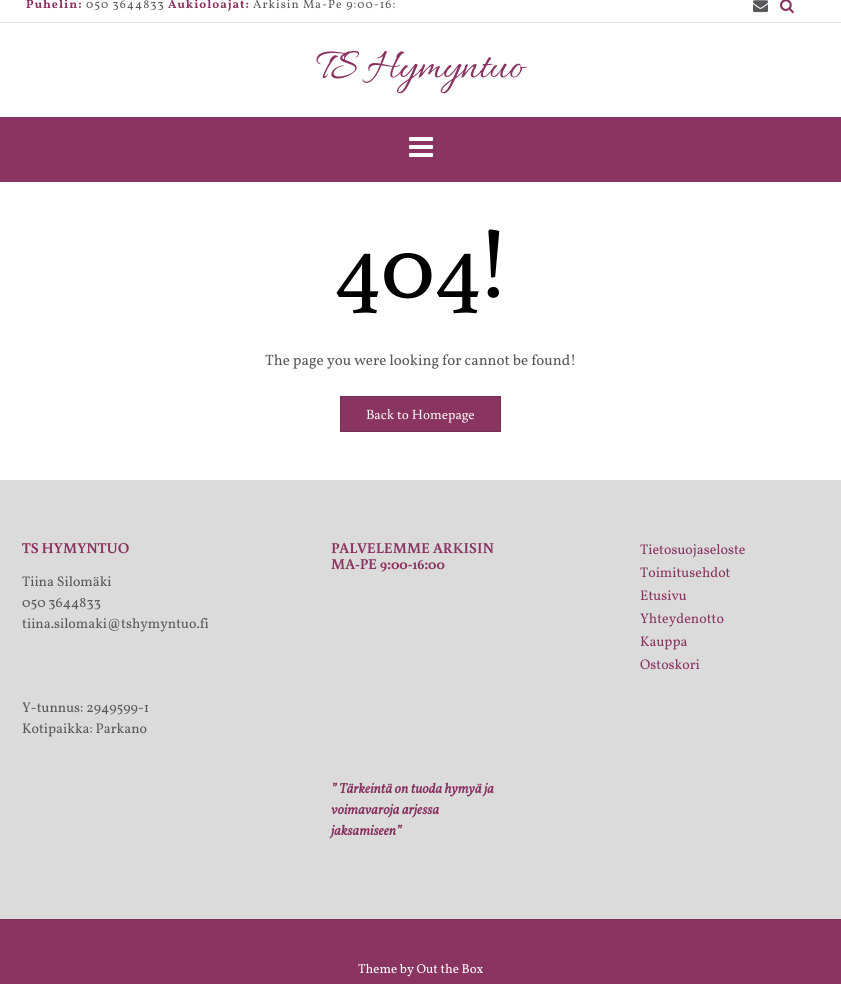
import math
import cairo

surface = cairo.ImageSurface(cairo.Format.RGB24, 841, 984)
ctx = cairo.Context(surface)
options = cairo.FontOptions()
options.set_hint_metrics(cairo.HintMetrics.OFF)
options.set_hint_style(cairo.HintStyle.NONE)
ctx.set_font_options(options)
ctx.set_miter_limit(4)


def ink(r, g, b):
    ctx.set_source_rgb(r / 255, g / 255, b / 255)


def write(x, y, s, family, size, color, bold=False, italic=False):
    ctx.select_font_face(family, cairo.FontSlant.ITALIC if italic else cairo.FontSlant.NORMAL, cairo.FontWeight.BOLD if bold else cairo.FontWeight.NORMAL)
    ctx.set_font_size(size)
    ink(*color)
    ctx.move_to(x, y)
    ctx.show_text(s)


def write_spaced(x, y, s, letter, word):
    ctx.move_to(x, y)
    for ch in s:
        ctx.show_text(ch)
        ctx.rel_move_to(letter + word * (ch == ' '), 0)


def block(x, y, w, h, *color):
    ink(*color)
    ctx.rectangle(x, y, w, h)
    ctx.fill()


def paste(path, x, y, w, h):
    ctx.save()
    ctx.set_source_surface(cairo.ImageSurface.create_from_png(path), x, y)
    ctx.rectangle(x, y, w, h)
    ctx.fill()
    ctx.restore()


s1 = dict(family="Allura", size=44, color=(137, 52, 97))
s2 = dict(family="Buenard", size=100, color=(0, 0, 0))
s3 = dict(family="Vollkorn", size=15, color=(88, 88, 90))
s4 = dict(family="Buenard", size=14, color=(255, 255, 255))
s5 = dict(family="Buenard", size=15, color=(137, 52, 97), bold=True)
s6 = dict(family="Vollkorn", size=14, color=(88, 88, 90))
s7 = dict(family="Vollkorn", size=14, color=(137, 52, 97), bold=True, italic=True)
s8 = dict(family="Vollkorn", size=14, color=(137, 52, 97))
s9 = dict(family="Vollkorn", size=13, color=(255, 255, 255))

ink(255, 255, 255)
ctx.paint()
block(0, 22, 841, 1, 224, 224, 224)
ctx.select_font_face("Vollkorn", cairo.FontSlant.NORMAL, cairo.FontWeight.BOLD)
ctx.set_font_size(12)
ink(137, 52, 97)
write_spaced(26, 8, "Puhelin:", 1, 0)
ctx.select_font_face("Vollkorn")
ink(88, 88, 90)
write_spaced(86, 8, "050 3644833", 1, 0)
ctx.select_font_face("Vollkorn", cairo.FontSlant.NORMAL, cairo.FontWeight.BOLD)
ink(137, 52, 97)
write_spaced(168, 8, "Aukioloajat:", 1, 0)
ctx.select_font_face("Vollkorn")
ink(88, 88, 90)
write_spaced(253, 8, "Arkisin Ma-Pe 9:00-16:", 1, 0)
paste("pic1.png", 753, 0, 15, 13)
paste("pic2.png", 780, 0, 14, 14)
write(316, 77, "TS Hymyntuo", **s1)
block(0, 117, 841, 65, 137, 52, 97)
paste("pic3.png", 409, 137, 24, 20)
write(335, 297, "404!", **s2)
write(265, 365, "The page you were looking for cannot be found!", **s3)
ink(137, 52, 97)
ctx.rectangle(340.5, 396.5, 160, 35)
ctx.fill_preserve()
ink(118, 45, 83)
ctx.set_line_width(1)
ctx.stroke()
write(366, 419, "Back to Homepage", **s4)
block(0, 480, 841, 439, 219, 219, 219)
write(22, 553, "TS HYMYNTUO", **s5)
write(22, 586, "Tiina Silomäki", **s6)
write(22, 607, "050 3644833", **s6)
write(22, 628, "tiina.silomaki@tshymyntuo.fi", **s6)
write(22, 712, "Y-tunnus: 2949599-1", **s6)
write(22, 733, "Kotipaikka: Parkano", **s6)
write(331, 553, "PALVELEMME ARKISIN", **s5)
write(331, 569, "MA-PE 9:00-16:00", **s5)
write(331, 793, "” Tärkeintä on tuoda hymyä ja", **s7)
write(331, 814, "voimavaroja arjessa", **s7)
write(331, 835, "jaksamiseen”", **s7)
write(640, 554, "Tietosuojaseloste", **s8)
write(640, 577, "Toimitusehdot", **s8)
write(640, 600, "Etusivu", **s8)
write(640, 623, "Yhteydenotto", **s8)
write(640, 646, "Kauppa", **s8)
write(640, 669, "Ostoskori", **s8)
block(0, 920, 841, 64, 137, 52, 97)
block(0, 919, 841, 1, 126, 48, 89)
write(358, 973, "Theme by Out the Box", **s9)
surface.write_to_png("screenshot.png")
